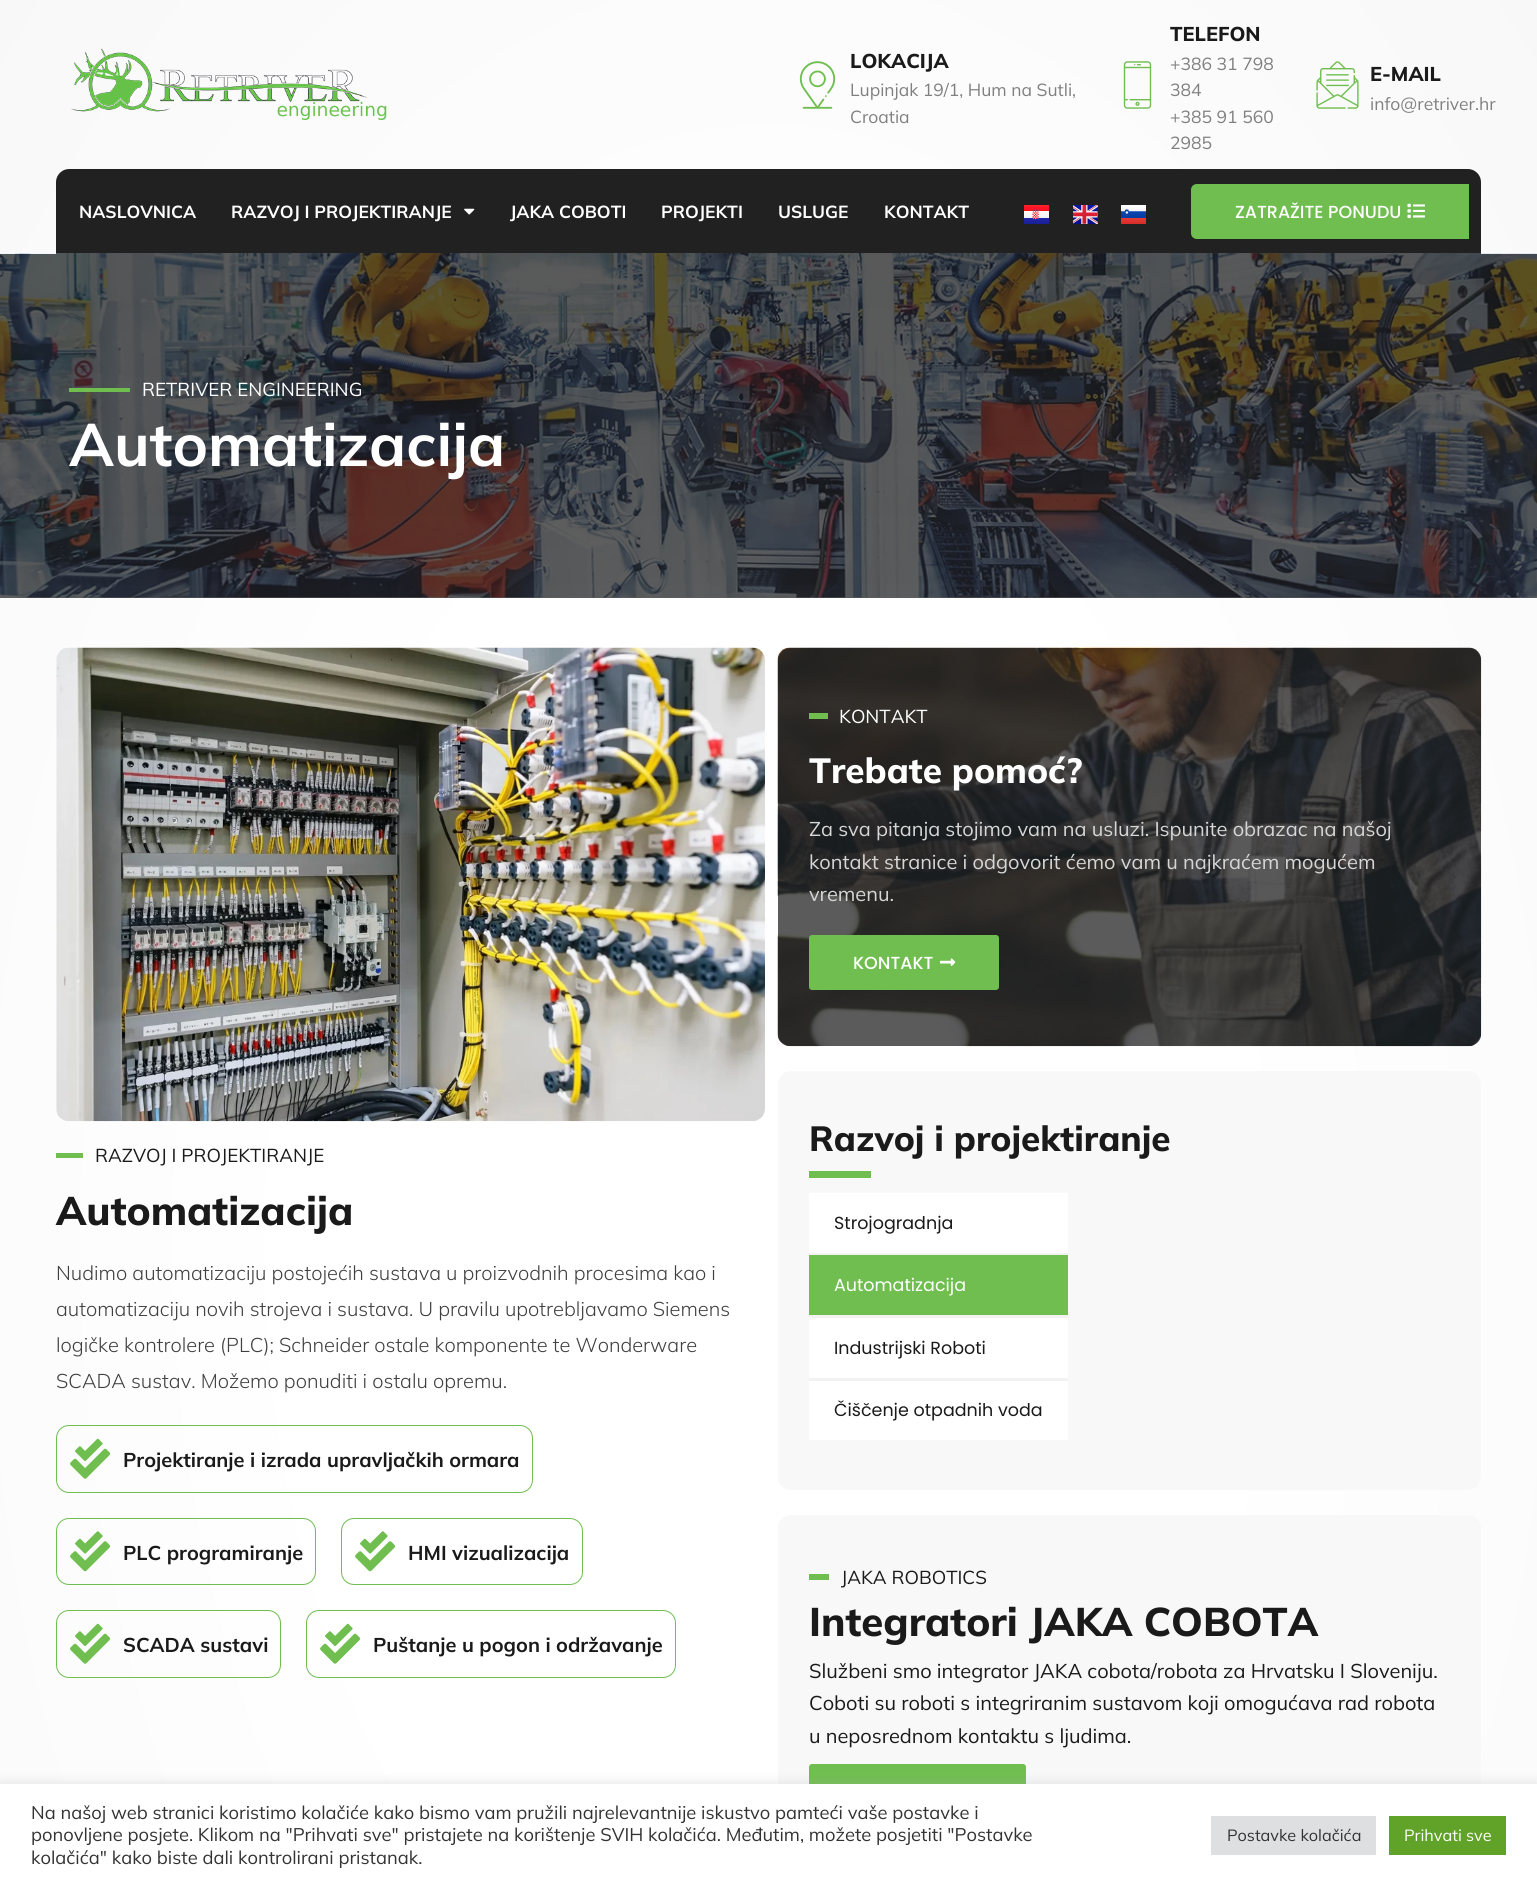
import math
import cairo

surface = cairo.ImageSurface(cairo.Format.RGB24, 1537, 1886)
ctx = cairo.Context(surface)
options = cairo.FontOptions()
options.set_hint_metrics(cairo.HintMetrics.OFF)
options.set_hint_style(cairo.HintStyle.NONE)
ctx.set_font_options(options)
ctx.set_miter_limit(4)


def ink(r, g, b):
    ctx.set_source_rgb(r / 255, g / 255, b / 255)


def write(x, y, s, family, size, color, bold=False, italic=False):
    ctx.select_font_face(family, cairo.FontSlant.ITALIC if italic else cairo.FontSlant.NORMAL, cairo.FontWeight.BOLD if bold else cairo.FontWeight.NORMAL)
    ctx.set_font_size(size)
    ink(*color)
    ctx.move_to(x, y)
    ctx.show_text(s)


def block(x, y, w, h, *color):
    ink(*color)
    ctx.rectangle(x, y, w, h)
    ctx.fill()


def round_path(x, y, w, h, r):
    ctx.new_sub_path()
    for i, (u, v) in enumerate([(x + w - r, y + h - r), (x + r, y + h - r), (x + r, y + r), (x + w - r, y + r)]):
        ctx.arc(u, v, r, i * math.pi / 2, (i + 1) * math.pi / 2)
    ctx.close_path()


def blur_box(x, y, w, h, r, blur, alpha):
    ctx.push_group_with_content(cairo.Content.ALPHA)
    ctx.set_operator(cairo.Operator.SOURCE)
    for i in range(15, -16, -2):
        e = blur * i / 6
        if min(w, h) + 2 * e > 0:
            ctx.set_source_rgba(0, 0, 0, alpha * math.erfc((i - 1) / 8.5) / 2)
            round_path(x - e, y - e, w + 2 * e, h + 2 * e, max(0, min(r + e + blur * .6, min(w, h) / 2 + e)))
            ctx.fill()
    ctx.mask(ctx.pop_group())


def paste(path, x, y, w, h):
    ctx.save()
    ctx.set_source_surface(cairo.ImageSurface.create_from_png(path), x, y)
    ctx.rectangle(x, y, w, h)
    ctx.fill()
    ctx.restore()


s1 = dict(family="Mulish ExtraBold", size=20, color=(26, 26, 26))
s2 = dict(family="Mulish", size=17.5, color=(128, 128, 128))
s3 = dict(family="Mulish", size=17.5, color=(255, 255, 255), bold=True)
s4 = dict(family="Poppins Medium", size=17.5, color=(255, 255, 255))
s5 = dict(family="Mulish", size=18.75, color=(255, 255, 255))
s6 = dict(family="Mulish", size=60, color=(255, 255, 255), bold=True)
s7 = dict(family="Mulish", size=18.75, color=(26, 26, 26))
s8 = dict(family="Mulish ExtraBold", size=40, color=(26, 26, 26))
s9 = dict(family="Mulish Light", size=20, color=(63, 63, 63))
s10 = dict(family="Mulish", size=20, color=(26, 26, 26), bold=True)
s11 = dict(family="Mulish ExtraBold", size=35, color=(255, 255, 255))
s12 = dict(family="Mulish", size=20, color=(214, 214, 214))
s13 = dict(family="Mulish ExtraBold", size=35, color=(26, 26, 26))
s14 = dict(family="Poppins", size=17.5, color=(26, 26, 26))
s15 = dict(family="Poppins", size=17.5, color=(255, 255, 255))
s16 = dict(family="Mulish", size=20, color=(26, 26, 26))
s17 = dict(family="Mulish", size=18.33, color=(51, 51, 51))
s18 = dict(family="Mulish", size=16.25, color=(51, 51, 51))
s19 = dict(family="Mulish", size=16.25, color=(255, 255, 255))

ink(255, 255, 255)
ctx.paint()
gradient = cairo.RadialGradient(0, 0, 0, 0, 0, 1)
gradient.set_matrix(cairo.Matrix(1 / 1087, 0, 0, 1 / 1751, -1 * 769 / 1087, -1 * 1238 / 1751))
gradient.add_color_stop_rgba(0.42, 1, 1, 1, 1)
gradient.add_color_stop_rgba(1, 0.973, 0.973, 0.973, 1)
ctx.set_source(gradient)
ctx.rectangle(0, 0, 1537, 1784)
ctx.fill()
paste("pic1.png", 70, 48, 317, 72)
paste("pic2.png", 799, 61, 37, 48)
write(850, 68, "LOKACIJA", **s1)
write(850, 96, "Lupinjak 19/1, Hum na Sutli,", **s2)
write(850, 123, "Croatia", **s2)
paste("pic3.png", 1123, 61, 29, 48)
write(1170, 41, "TELEFON", **s1)
write(1170, 70, "+386 31 798", **s2)
write(1170, 96, "384", **s2)
write(1170, 123, "+385 91 560", **s2)
write(1170, 149, "2985", **s2)
paste("pic4.png", 1316, 61, 43, 48)
write(1370, 81, "E-MAIL", **s1)
write(1370, 110, "info@retriver.hr", **s2)
ink(33, 33, 33)
ctx.new_path()
ctx.move_to(69, 169)
ctx.line_to(1468, 169)
ctx.curve_to(1475, 169, 1481, 175, 1481, 182)
ctx.line_to(1481, 254)
ctx.line_to(56, 254)
ctx.line_to(56, 182)
ctx.curve_to(56, 175, 62, 169, 69, 169)
ctx.close_path()
ctx.fill()
write(79, 218, "NASLOVNICA", **s3)
write(231, 218, "RAZVOJ I PROJEKTIRANJE", **s3)
paste("pic5.png", 464, 208, 11, 7)
write(510, 218, "JAKA COBOTI", **s3)
write(661, 218, "PROJEKTI", **s3)
write(778, 218, "USLUGE", **s3)
write(884, 218, "KONTAKT", **s3)
paste("pic6.png", 1024, 205, 25, 19)
paste("pic7.png", 1073, 205, 25, 19)
paste("pic8.png", 1121, 205, 25, 19)
ink(111, 190, 79)
ctx.new_path()
ctx.move_to(1197, 184)
ctx.line_to(1469, 184)
ctx.line_to(1469, 239)
ctx.line_to(1197, 239)
ctx.curve_to(1193.5, 239, 1191, 236.5, 1191, 233)
ctx.line_to(1191, 190)
ctx.curve_to(1191, 186.5, 1193.5, 184, 1197, 184)
ctx.close_path()
ctx.fill()
write(1235, 218, "ZATRAŽITE PONUDU", **s4)
paste("pic9.png", 1407, 203, 18, 16)
paste("pic10.png", 0, 253, 1537, 345)
gradient = cairo.LinearGradient(769, 254, 769, 598)
gradient.add_color_stop_rgba(0, 0.102, 0.102, 0.102, 0.72)
gradient.add_color_stop_rgba(1, 0.129, 0.129, 0.129, 0.72)
ctx.set_source(gradient)
ctx.rectangle(0, 254, 1537, 344)
ctx.fill()
block(69, 388, 61, 4, 111, 190, 79)
write(142, 396, "RETRIVER ENGINEERING", **s5)
write(69, 466, "Automatizacija", **s6)
paste("pic11.png", 56, 647, 709, 475)
block(56, 1153, 27, 5, 111, 190, 79)
write(95, 1162, "RAZVOJ I PROJEKTIRANJE", **s7)
write(56, 1225, "Automatizacija", **s8)
write(56, 1280, "Nudimo automatizaciju postojećih sustava u proizvodnih procesima kao i", **s9)
write(56, 1316, "automatizaciju novih strojeva i sustava. U pravilu upotrebljavamo Siemens", **s9)
write(56, 1352, "logičke kontrolere (PLC); Schneider ostale komponente te Wonderware", **s9)
write(56, 1388, "SCADA sustav. Možemo ponuditi i ostalu opremu.", **s9)
round_path(56.5, 1425.5, 476, 67, 12.5)
ink(111, 190, 79)
ctx.set_line_width(1)
ctx.stroke()
paste("pic12.png", 70, 1438, 41, 41)
write(123, 1467, "Projektiranje i izrada upravljačkih ormara", **s10)
round_path(56.5, 1518.5, 259, 66, 12.5)
ink(111, 190, 79)
ctx.stroke()
paste("pic13.png", 70, 1531, 41, 41)
write(123, 1560, "PLC programiranje", **s10)
round_path(341.5, 1518.5, 241, 66, 12.5)
ink(111, 190, 79)
ctx.stroke()
paste("pic14.png", 355, 1531, 41, 41)
write(408, 1560, "HMI vizualizacija", **s10)
round_path(56.5, 1610.5, 224, 67, 12.5)
ink(111, 190, 79)
ctx.stroke()
paste("pic15.png", 70, 1623, 41, 41)
write(123, 1652, "SCADA sustavi", **s10)
round_path(306.5, 1610.5, 369, 67, 12.5)
ink(111, 190, 79)
ctx.stroke()
paste("pic16.png", 320, 1623, 41, 41)
write(373, 1652, "Puštanje u pogon i održavanje", **s10)
paste("pic17.png", 777, 647, 705, 400)
ctx.set_source_rgba(0.129, 0.129, 0.129, 0.72)
round_path(778, 648, 703, 398, 13)
ctx.fill()
block(809, 713, 19, 6, 111, 190, 79)
write(839, 723, "KONTAKT", **s5)
write(809, 783, "Trebate pomoć?", **s11)
write(809, 836, "Za sva pitanja stojimo vam na usluzi. Ispunite obrazac na našoj", **s12)
write(809, 869, "kontakt stranice i odgovorit ćemo vam u najkraćem mogućem", **s12)
write(809, 901, "vremenu.", **s12)
ink(111, 190, 79)
round_path(809, 935, 190, 55, 3)
ctx.fill()
write(853, 969, "KONTAKT", **s4)
paste("pic18.png", 940, 958, 16, 8)
ink(248, 248, 248)
round_path(778, 1071, 703, 419, 13)
ctx.fill()
write(809, 1151, "Razvoj i projektiranje", **s13)
block(809, 1171, 62, 7, 111, 190, 79)
block(809, 1193, 259, 247, 255, 255, 255)
block(809, 1253, 259, 2, 242, 242, 242)
write(834, 1229, "Strojogradnja", **s14)
block(809, 1315, 259, 3, 242, 242, 242)
block(809, 1255, 259, 60, 111, 190, 79)
write(834, 1291, "Automatizacija", **s15)
block(809, 1378, 259, 3, 242, 242, 242)
write(834, 1354, "Industrijski Roboti", **s14)
write(834, 1416, "Čiščenje otpadnih voda", **s14)
ink(248, 248, 248)
round_path(778, 1515, 703, 354, 13)
ctx.fill()
block(809, 1574, 20, 6, 111, 190, 79)
write(841, 1584, "JAKA ROBOTICS", **s7)
write(809, 1636, "Integratori JAKA COBOTA", **s8)
write(809, 1678, "Službeni smo integrator JAKA cobota/robota za Hrvatsku I Sloveniju.", **s16)
write(809, 1710, "Coboti su roboti s integriranim sustavom koji omogućava rad robota", **s16)
write(809, 1743, "u neposrednom kontaktu s ljudima.", **s16)
ink(111, 190, 79)
round_path(809, 1764, 217, 55, 3)
ctx.fill()
ink(172, 171, 171)
blur_box(0, 1783, 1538, 102, 0, 6, 0.3)
block(0, 1784, 1537, 102, 255, 255, 255)
write(31, 1819, "Na našoj web stranici koristimo kolačiće kako bismo vam pružili najrelevantnije iskustvo pamteći vaše postavke i", **s17)
write(31, 1841, "ponovljene posjete. Klikom na \"Prihvati sve\" pristajete na korištenje SVIH kolačića. Međutim, možete posjetiti \"Postavke", **s17)
write(31, 1864, "kolačića\" kako biste dali kontrolirani pristanak.", **s17)
block(1211, 1816, 165, 39, 222, 223, 224)
write(1227, 1841, "Postavke kolačića", **s18)
block(1389, 1816, 117, 39, 97, 162, 41)
write(1404, 1841, "Prihvati sve", **s19)
surface.write_to_png("screenshot.png")
